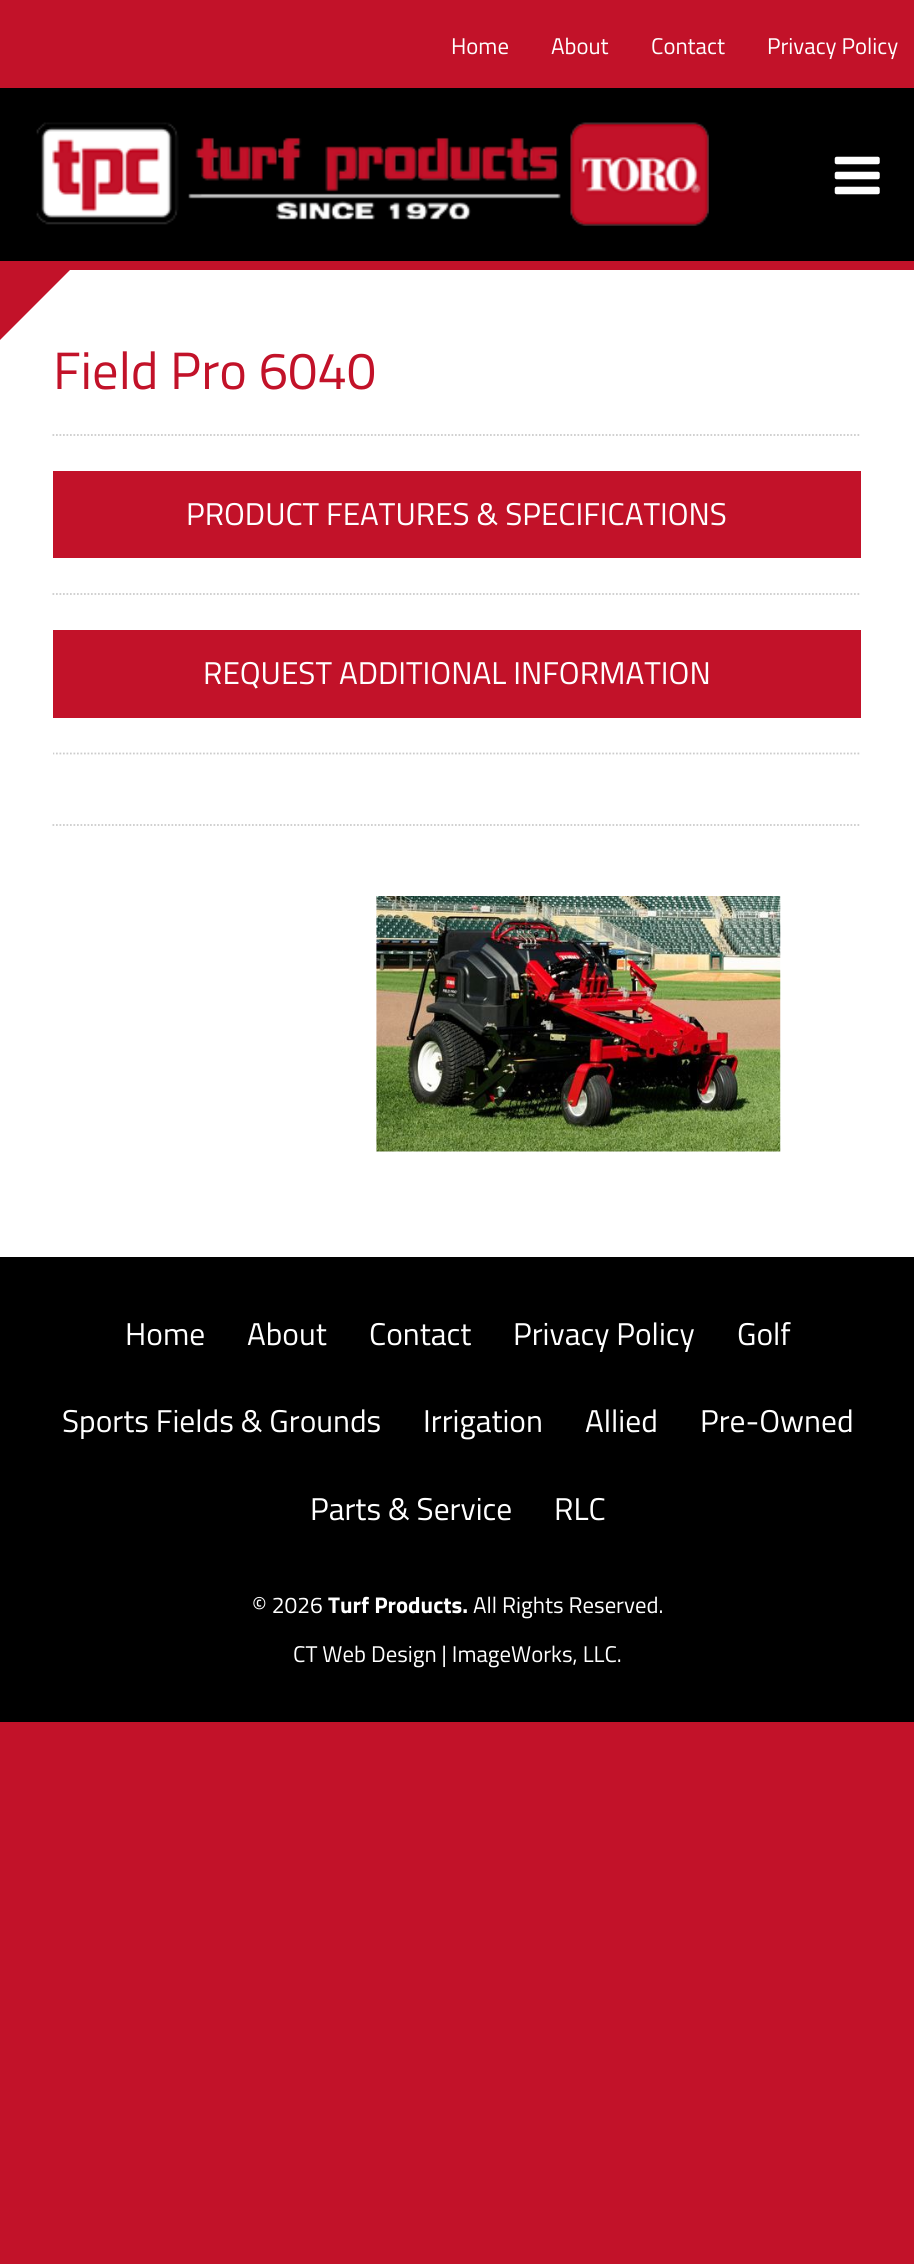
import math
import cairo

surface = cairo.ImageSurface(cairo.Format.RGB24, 914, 2264)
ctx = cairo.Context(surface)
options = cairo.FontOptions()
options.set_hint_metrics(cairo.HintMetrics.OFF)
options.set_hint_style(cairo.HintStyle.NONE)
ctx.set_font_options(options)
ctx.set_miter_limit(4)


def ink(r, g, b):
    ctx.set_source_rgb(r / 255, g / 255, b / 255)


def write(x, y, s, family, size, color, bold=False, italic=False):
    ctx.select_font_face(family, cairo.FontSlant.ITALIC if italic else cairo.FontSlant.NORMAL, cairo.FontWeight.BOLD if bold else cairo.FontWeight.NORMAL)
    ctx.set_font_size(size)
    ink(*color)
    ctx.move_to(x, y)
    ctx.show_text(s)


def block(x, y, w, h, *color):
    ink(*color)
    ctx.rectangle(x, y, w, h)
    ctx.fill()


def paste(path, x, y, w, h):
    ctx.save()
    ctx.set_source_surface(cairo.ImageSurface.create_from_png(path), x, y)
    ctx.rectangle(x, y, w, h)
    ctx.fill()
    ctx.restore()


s1 = dict(family="Titillium Web", size=22.75, color=(255, 255, 255))
s2 = dict(family="Titillium Web", size=52.5, color=(194, 18, 41))
s3 = dict(family="Titillium Web", size=31.5, color=(255, 255, 255))
s4 = dict(family="Titillium Web", size=22.75, color=(255, 255, 255), bold=True)

ink(194, 18, 41)
ctx.paint()
write(451, 54, "Home", **s1)
write(551, 54, "About", **s1)
write(651, 54, "Contact", **s1)
write(767, 54, "Privacy Policy", **s1)
block(0, 88, 914, 173, 0, 0, 0)
paste("pic1.png", 36, 122, 673, 104)
paste("pic2.png", 834, 156, 46, 39)
block(0, 270, 914, 987, 255, 255, 255)
ink(194, 18, 41)
ctx.new_path()
ctx.move_to(0, 340)
ctx.line_to(0, 270)
ctx.line_to(70, 270)
ctx.close_path()
ctx.fill()
ctx.new_path()
ctx.move_to(52.5, 435)
ctx.line_to(861, 435)
ink(204, 204, 204)
ctx.set_line_width(1.8)
ctx.set_dash([1.75, 1.75])
ctx.stroke()
write(53, 389, "Field Pro 6040", **s2)
block(53, 471, 808, 87, 194, 18, 41)
write(186, 525, "PRODUCT FEATURES & SPECIFICATIONS", **s3)
ctx.new_path()
ctx.move_to(52.5, 594)
ctx.line_to(861, 594)
ink(204, 204, 204)
ctx.stroke()
block(53, 630, 808, 88, 194, 18, 41)
write(203, 684, "REQUEST ADDITIONAL INFORMATION", **s3)
ctx.save()
ctx.rectangle(53, 471, 808, 390)
ctx.clip()
ctx.new_path()
ctx.move_to(52.5, 753.5)
ctx.line_to(861, 753.5)
ink(204, 204, 204)
ctx.stroke()
ctx.restore()
ctx.new_path()
ctx.move_to(52.5, 825)
ctx.line_to(861, 825)
ink(204, 204, 204)
ctx.stroke()
paste("pic3.png", 376, 896, 405, 256)
block(0, 1257, 914, 465, 0, 0, 0)
write(125, 1345, "Home", **s3)
write(247, 1345, "About", **s3)
write(369, 1345, "Contact", **s3)
write(513, 1345, "Privacy Policy", **s3)
write(737, 1345, "Golf", **s3)
write(62, 1432, "Sports Fields & Grounds", **s3)
write(423, 1432, "Irrigation", **s3)
write(585, 1432, "Allied", **s3)
write(700, 1432, "Pre-Owned", **s3)
write(310, 1520, "Parts & Service", **s3)
write(554, 1520, "RLC", **s3)
write(252, 1613, "© 2026", **s1)
write(328, 1613, "Turf Products.", **s4)
write(473, 1613, "All Rights Reserved.", **s1)
write(293, 1662, "CT Web Design | ImageWorks, LLC.", **s1)
surface.write_to_png("screenshot.png")
